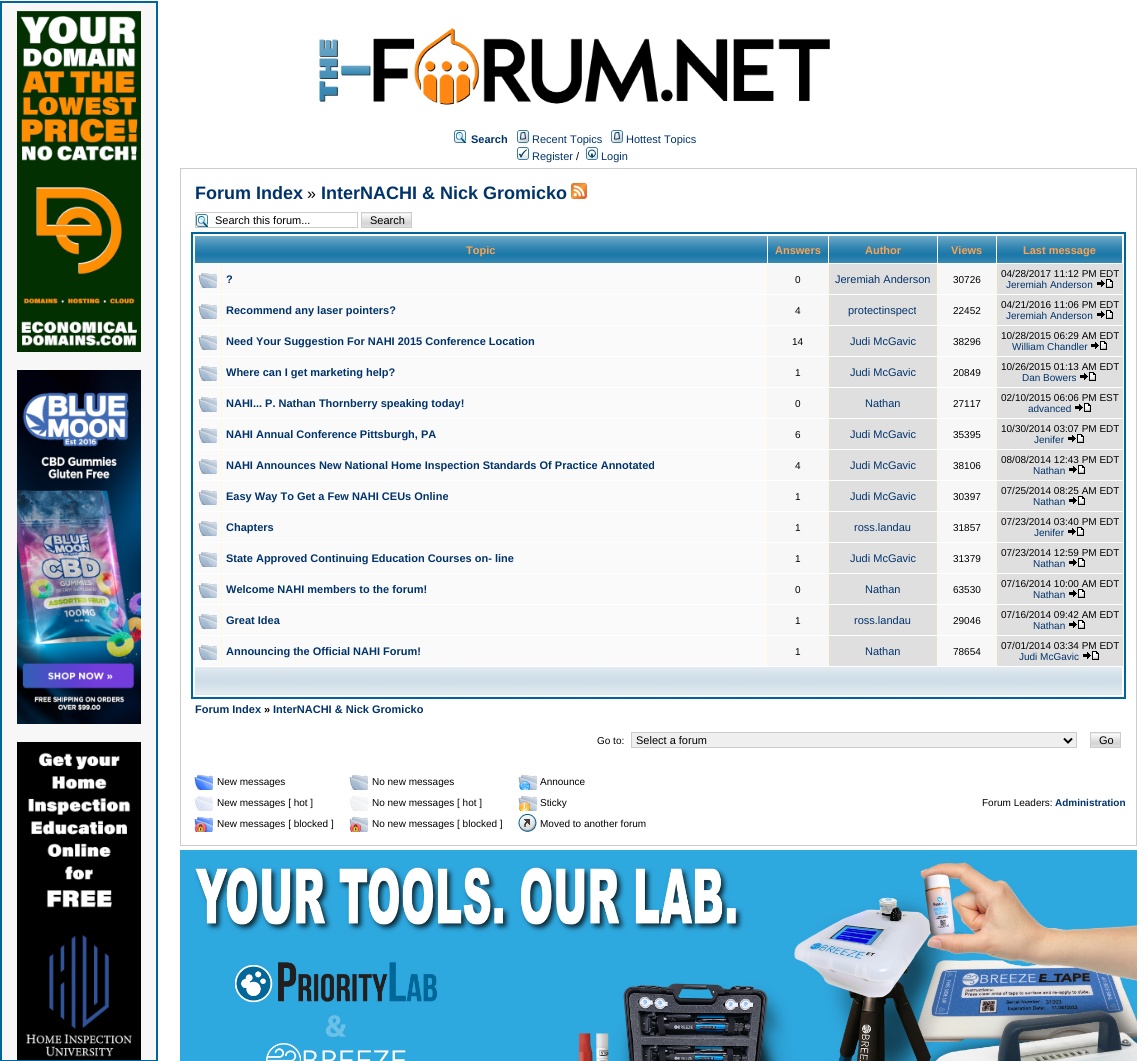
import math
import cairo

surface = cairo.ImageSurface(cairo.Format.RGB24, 1148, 1061)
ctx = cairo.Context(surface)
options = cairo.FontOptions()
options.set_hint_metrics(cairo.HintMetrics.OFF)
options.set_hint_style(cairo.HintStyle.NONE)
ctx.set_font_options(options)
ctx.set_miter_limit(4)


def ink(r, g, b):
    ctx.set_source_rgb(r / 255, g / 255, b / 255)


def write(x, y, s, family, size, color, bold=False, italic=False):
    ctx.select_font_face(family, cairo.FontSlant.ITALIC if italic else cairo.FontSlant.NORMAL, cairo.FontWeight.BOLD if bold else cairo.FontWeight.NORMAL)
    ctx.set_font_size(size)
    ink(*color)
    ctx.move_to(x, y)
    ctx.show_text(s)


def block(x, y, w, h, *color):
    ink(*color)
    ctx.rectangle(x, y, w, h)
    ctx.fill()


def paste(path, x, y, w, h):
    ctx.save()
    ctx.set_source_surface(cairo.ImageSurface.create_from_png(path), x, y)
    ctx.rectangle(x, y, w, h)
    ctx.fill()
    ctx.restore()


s1 = dict(family="Liberation Sans", size=11, color=(1, 51, 107), bold=True)
s2 = dict(family="Liberation Sans", size=11, color=(1, 51, 107))
s3 = dict(family="Liberation Sans", size=11, color=(0, 0, 0))
s4 = dict(family="Liberation Sans", size=18, color=(1, 51, 107), bold=True)
s5 = dict(family="Liberation Sans", size=16, color=(0, 0, 0))
s6 = dict(family="Liberation Sans", size=11, color=(255, 163, 79), bold=True)
s7 = dict(family="Liberation Sans", size=10, color=(0, 0, 0))
s8 = dict(family="Liberation Sans", size=10, color=(1, 51, 107))
s9 = dict(family="Liberation Sans", size=11, color=(0, 0, 0), bold=True)
s10 = dict(family="Liberation Sans", size=10, color=(1, 51, 107), bold=True)

ink(255, 255, 255)
ctx.paint()
paste("pic1.png", 319, 28, 511, 77)
paste("pic2.png", 454, 130, 12, 13)
write(471, 143, "Search", **s1)
paste("pic3.png", 517, 130, 12, 13)
write(532, 143, "Recent Topics", **s2)
paste("pic3.png", 611, 130, 12, 13)
write(626, 143, "Hottest Topics", **s2)
paste("pic4.png", 517, 147, 12, 13)
write(532, 160, "Register", **s2)
write(576, 160, "/", **s3)
paste("pic5.png", 586, 147, 12, 13)
write(601, 160, "Login", **s2)
ink(247, 247, 248)
ctx.rectangle(1, 2, 156, 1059)
ctx.fill_preserve()
ink(0, 102, 153)
ctx.stroke()
paste("pic6.png", 17, 11, 124, 341)
paste("pic7.png", 17, 370, 124, 354)
paste("pic8.png", 17, 742, 124, 318)
ctx.rectangle(180.5, 168.5, 956, 677)
ink(204, 204, 204)
ctx.set_line_width(1)
ctx.stroke()
write(195, 199, "Forum Index", **s4)
write(307, 199, "»", **s5)
write(321, 199, "InterNACHI & Nick Gromicko", **s4)
paste("pic9.png", 571, 183, 16, 16)
paste("pic2.png", 196, 214, 12, 13)
ctx.rectangle(195.5, 212.5, 162, 15)
ink(204, 204, 204)
ctx.stroke()
write(215, 224, "Search this forum...", **s3)
paste("pic10.png", 362, 213, 49, 14)
ctx.rectangle(361.5, 212.5, 50, 15)
ink(204, 204, 204)
ctx.stroke()
write(370, 224, "Search", **s3)
ctx.rectangle(192, 233, 933, 465)
ink(0, 102, 153)
ctx.set_line_width(2)
ctx.stroke()
paste("pic11.png", 195, 236, 572, 27)
write(466, 254, "Topic", **s6)
paste("pic12.png", 768, 236, 60, 27)
write(775, 254, "Answers", **s6)
paste("pic13.png", 829, 236, 108, 27)
write(865, 254, "Author", **s6)
paste("pic14.png", 938, 236, 58, 27)
write(951, 254, "Views", **s6)
paste("pic15.png", 997, 236, 125, 27)
write(1023, 254, "Last message", **s6)
block(221, 264, 776, 30, 255, 248, 221)
block(194, 264, 27, 30, 250, 250, 250)
paste("pic16.png", 198, 272, 19, 16)
block(222, 264, 545, 30, 250, 250, 250)
write(226, 283, "?", **s1)
block(768, 264, 60, 30, 247, 247, 248)
write(795, 283, "0", **s7)
block(829, 264, 108, 30, 223, 223, 223)
write(835, 283, "Jeremiah Anderson", **s2)
block(938, 264, 58, 30, 247, 247, 248)
write(953, 283, "30726", **s7)
block(997, 264, 126, 30, 223, 223, 223)
write(1001, 277, "04/28/2017 11:12 PM EDT", **s7)
write(1006, 288, "Jeremiah Anderson", **s8)
paste("pic17.png", 1097, 279, 16, 9)
block(221, 295, 776, 30, 255, 248, 221)
block(194, 295, 27, 30, 250, 250, 250)
paste("pic16.png", 198, 303, 19, 16)
block(222, 295, 545, 30, 250, 250, 250)
write(226, 314, "Recommend any laser pointers?", **s1)
block(768, 295, 60, 30, 247, 247, 248)
write(795, 314, "4", **s7)
block(829, 295, 108, 30, 223, 223, 223)
write(848, 314, "protectinspect", **s2)
block(938, 295, 58, 30, 247, 247, 248)
write(953, 314, "22452", **s7)
block(997, 295, 126, 30, 223, 223, 223)
write(1001, 308, "04/21/2016 11:06 PM EDT", **s7)
write(1006, 319, "Jeremiah Anderson", **s8)
paste("pic17.png", 1097, 310, 16, 9)
block(221, 326, 776, 30, 255, 248, 221)
block(194, 326, 27, 30, 250, 250, 250)
paste("pic16.png", 198, 334, 19, 16)
block(222, 326, 545, 30, 250, 250, 250)
write(226, 345, "Need Your Suggestion For NAHI 2015 Conference Location", **s1)
block(768, 326, 60, 30, 247, 247, 248)
write(792, 345, "14", **s7)
block(829, 326, 108, 30, 223, 223, 223)
write(850, 345, "Judi McGavic", **s2)
block(938, 326, 58, 30, 247, 247, 248)
write(953, 345, "38296", **s7)
block(997, 326, 126, 30, 223, 223, 223)
write(1001, 339, "10/28/2015 06:29 AM EDT", **s7)
write(1012, 350, "William Chandler", **s8)
paste("pic17.png", 1091, 341, 16, 9)
block(221, 357, 776, 30, 255, 248, 221)
block(194, 357, 27, 30, 250, 250, 250)
paste("pic16.png", 198, 365, 19, 16)
block(222, 357, 545, 30, 250, 250, 250)
write(226, 376, "Where can I get marketing help?", **s1)
block(768, 357, 60, 30, 247, 247, 248)
write(795, 376, "1", **s7)
block(829, 357, 108, 30, 223, 223, 223)
write(850, 376, "Judi McGavic", **s2)
block(938, 357, 58, 30, 247, 247, 248)
write(953, 376, "20849", **s7)
block(997, 357, 126, 30, 223, 223, 223)
write(1001, 370, "10/26/2015 01:13 AM EDT", **s7)
write(1022, 381, "Dan Bowers", **s8)
paste("pic17.png", 1080, 372, 16, 9)
block(221, 388, 776, 30, 255, 248, 221)
block(194, 388, 27, 30, 250, 250, 250)
paste("pic16.png", 198, 396, 19, 16)
block(222, 388, 545, 30, 250, 250, 250)
write(226, 407, "NAHI... P. Nathan Thornberry speaking today!", **s1)
block(768, 388, 60, 30, 247, 247, 248)
write(795, 407, "0", **s7)
block(829, 388, 108, 30, 223, 223, 223)
write(865, 407, "Nathan", **s2)
block(938, 388, 58, 30, 247, 247, 248)
write(953, 407, "27117", **s7)
block(997, 388, 126, 30, 223, 223, 223)
write(1001, 401, "02/10/2015 06:06 PM EST", **s7)
write(1028, 412, "advanced", **s8)
paste("pic17.png", 1075, 403, 16, 9)
block(221, 419, 776, 30, 255, 248, 221)
block(194, 419, 27, 30, 250, 250, 250)
paste("pic16.png", 198, 427, 19, 16)
block(222, 419, 545, 30, 250, 250, 250)
write(226, 438, "NAHI Annual Conference Pittsburgh, PA", **s1)
block(768, 419, 60, 30, 247, 247, 248)
write(795, 438, "6", **s7)
block(829, 419, 108, 30, 223, 223, 223)
write(850, 438, "Judi McGavic", **s2)
block(938, 419, 58, 30, 247, 247, 248)
write(953, 438, "35395", **s7)
block(997, 419, 126, 30, 223, 223, 223)
write(1001, 432, "10/30/2014 03:07 PM EDT", **s7)
write(1034, 443, "Jenifer", **s8)
paste("pic17.png", 1068, 434, 16, 9)
block(221, 450, 776, 30, 255, 248, 221)
block(194, 450, 27, 30, 250, 250, 250)
paste("pic16.png", 198, 458, 19, 16)
block(222, 450, 545, 30, 250, 250, 250)
write(226, 469, "NAHI Announces New National Home Inspection Standards Of Practice Annotated", **s1)
block(768, 450, 60, 30, 247, 247, 248)
write(795, 469, "4", **s7)
block(829, 450, 108, 30, 223, 223, 223)
write(850, 469, "Judi McGavic", **s2)
block(938, 450, 58, 30, 247, 247, 248)
write(953, 469, "38106", **s7)
block(997, 450, 126, 30, 223, 223, 223)
write(1001, 463, "08/08/2014 12:43 PM EDT", **s7)
write(1033, 474, "Nathan", **s8)
paste("pic17.png", 1069, 465, 16, 9)
block(221, 481, 776, 30, 255, 248, 221)
block(194, 481, 27, 30, 250, 250, 250)
paste("pic16.png", 198, 489, 19, 16)
block(222, 481, 545, 30, 250, 250, 250)
write(226, 500, "Easy Way To Get a Few NAHI CEUs Online", **s1)
block(768, 481, 60, 30, 247, 247, 248)
write(795, 500, "1", **s7)
block(829, 481, 108, 30, 223, 223, 223)
write(850, 500, "Judi McGavic", **s2)
block(938, 481, 58, 30, 247, 247, 248)
write(953, 500, "30397", **s7)
block(997, 481, 126, 30, 223, 223, 223)
write(1001, 494, "07/25/2014 08:25 AM EDT", **s7)
write(1033, 505, "Nathan", **s8)
paste("pic17.png", 1069, 496, 16, 9)
block(221, 512, 776, 30, 255, 248, 221)
block(194, 512, 27, 30, 250, 250, 250)
paste("pic16.png", 198, 520, 19, 16)
block(222, 512, 545, 30, 250, 250, 250)
write(226, 531, "Chapters", **s1)
block(768, 512, 60, 30, 247, 247, 248)
write(795, 531, "1", **s7)
block(829, 512, 108, 30, 223, 223, 223)
write(854, 531, "ross.landau", **s2)
block(938, 512, 58, 30, 247, 247, 248)
write(953, 531, "31857", **s7)
block(997, 512, 126, 30, 223, 223, 223)
write(1001, 525, "07/23/2014 03:40 PM EDT", **s7)
write(1034, 536, "Jenifer", **s8)
paste("pic17.png", 1068, 527, 16, 9)
block(221, 543, 776, 30, 255, 248, 221)
block(194, 543, 27, 30, 250, 250, 250)
paste("pic16.png", 198, 551, 19, 16)
block(222, 543, 545, 30, 250, 250, 250)
write(226, 562, "State Approved Continuing Education Courses on- line", **s1)
block(768, 543, 60, 30, 247, 247, 248)
write(795, 562, "1", **s7)
block(829, 543, 108, 30, 223, 223, 223)
write(850, 562, "Judi McGavic", **s2)
block(938, 543, 58, 30, 247, 247, 248)
write(953, 562, "31379", **s7)
block(997, 543, 126, 30, 223, 223, 223)
write(1001, 556, "07/23/2014 12:59 PM EDT", **s7)
write(1033, 567, "Nathan", **s8)
paste("pic17.png", 1069, 558, 16, 9)
block(221, 574, 776, 30, 255, 248, 221)
block(194, 574, 27, 30, 250, 250, 250)
paste("pic16.png", 198, 582, 19, 16)
block(222, 574, 545, 30, 250, 250, 250)
write(226, 593, "Welcome NAHI members to the forum!", **s1)
block(768, 574, 60, 30, 247, 247, 248)
write(795, 593, "0", **s7)
block(829, 574, 108, 30, 223, 223, 223)
write(865, 593, "Nathan", **s2)
block(938, 574, 58, 30, 247, 247, 248)
write(953, 593, "63530", **s7)
block(997, 574, 126, 30, 223, 223, 223)
write(1001, 587, "07/16/2014 10:00 AM EDT", **s7)
write(1033, 598, "Nathan", **s8)
paste("pic17.png", 1069, 589, 16, 9)
block(221, 605, 776, 30, 255, 248, 221)
block(194, 605, 27, 30, 250, 250, 250)
paste("pic16.png", 198, 613, 19, 16)
block(222, 605, 545, 30, 250, 250, 250)
write(226, 624, "Great Idea", **s1)
block(768, 605, 60, 30, 247, 247, 248)
write(795, 624, "1", **s7)
block(829, 605, 108, 30, 223, 223, 223)
write(854, 624, "ross.landau", **s2)
block(938, 605, 58, 30, 247, 247, 248)
write(953, 624, "29046", **s7)
block(997, 605, 126, 30, 223, 223, 223)
write(1001, 618, "07/16/2014 09:42 AM EDT", **s7)
write(1033, 629, "Nathan", **s8)
paste("pic17.png", 1069, 620, 16, 9)
block(221, 636, 776, 30, 255, 248, 221)
block(194, 636, 27, 30, 250, 250, 250)
paste("pic16.png", 198, 644, 19, 16)
block(222, 636, 545, 30, 250, 250, 250)
write(226, 655, "Announcing the Official NAHI Forum!", **s1)
block(768, 636, 60, 30, 247, 247, 248)
write(795, 655, "1", **s7)
block(829, 636, 108, 30, 223, 223, 223)
write(865, 655, "Nathan", **s2)
block(938, 636, 58, 30, 247, 247, 248)
write(953, 655, "78654", **s7)
block(997, 636, 126, 30, 223, 223, 223)
write(1001, 649, "07/01/2014 03:34 PM EDT", **s7)
write(1019, 660, "Judi McGavic", **s8)
paste("pic17.png", 1083, 651, 16, 9)
paste("pic18.png", 195, 667, 927, 28)
write(195, 713, "Forum Index", **s1)
write(264, 713, "»", **s9)
write(273, 713, "InterNACHI & Nick Gromicko", **s1)
write(597, 744, "Go to:", **s7)
ink(239, 239, 239)
ctx.rectangle(631.5, 732.5, 445, 15)
ctx.fill_preserve()
ink(204, 204, 204)
ctx.set_line_width(1)
ctx.stroke()
ctx.new_path()
ctx.move_to(1064, 738.5)
ctx.line_to(1068, 742.5)
ctx.line_to(1072, 738.5)
ink(0, 0, 0)
ctx.set_line_width(2)
ctx.stroke()
write(636, 744, "Select a forum", **s3)
paste("pic19.png", 1091, 733, 29, 14)
ctx.rectangle(1090.5, 732.5, 30, 15)
ink(204, 204, 204)
ctx.set_line_width(1)
ctx.stroke()
write(1099, 744, "Go", **s3)
paste("pic20.png", 194, 774, 19, 16)
write(217, 785, "New messages", **s7)
paste("pic21.png", 349, 774, 19, 16)
write(372, 785, "No new messages", **s7)
paste("pic22.png", 518, 774, 19, 16)
write(540, 785, "Announce", **s7)
paste("pic23.png", 194, 796, 19, 15)
write(217, 806, "New messages [ hot ]", **s7)
paste("pic24.png", 350, 796, 18, 15)
write(372, 806, "No new messages [ hot ]", **s7)
paste("pic25.png", 518, 795, 19, 16)
write(540, 806, "Sticky", **s7)
paste("pic26.png", 194, 816, 19, 16)
write(217, 827, "New messages [ blocked ]", **s7)
paste("pic27.png", 349, 816, 19, 16)
write(372, 827, "No new messages [ blocked ]", **s7)
paste("pic28.png", 518, 814, 19, 18)
write(540, 827, "Moved to another forum", **s7)
write(982, 806, "Forum Leaders:", **s7)
write(1055, 806, "Administration", **s10)
paste("pic29.png", 180, 850, 957, 211)
surface.write_to_png("screenshot.png")
